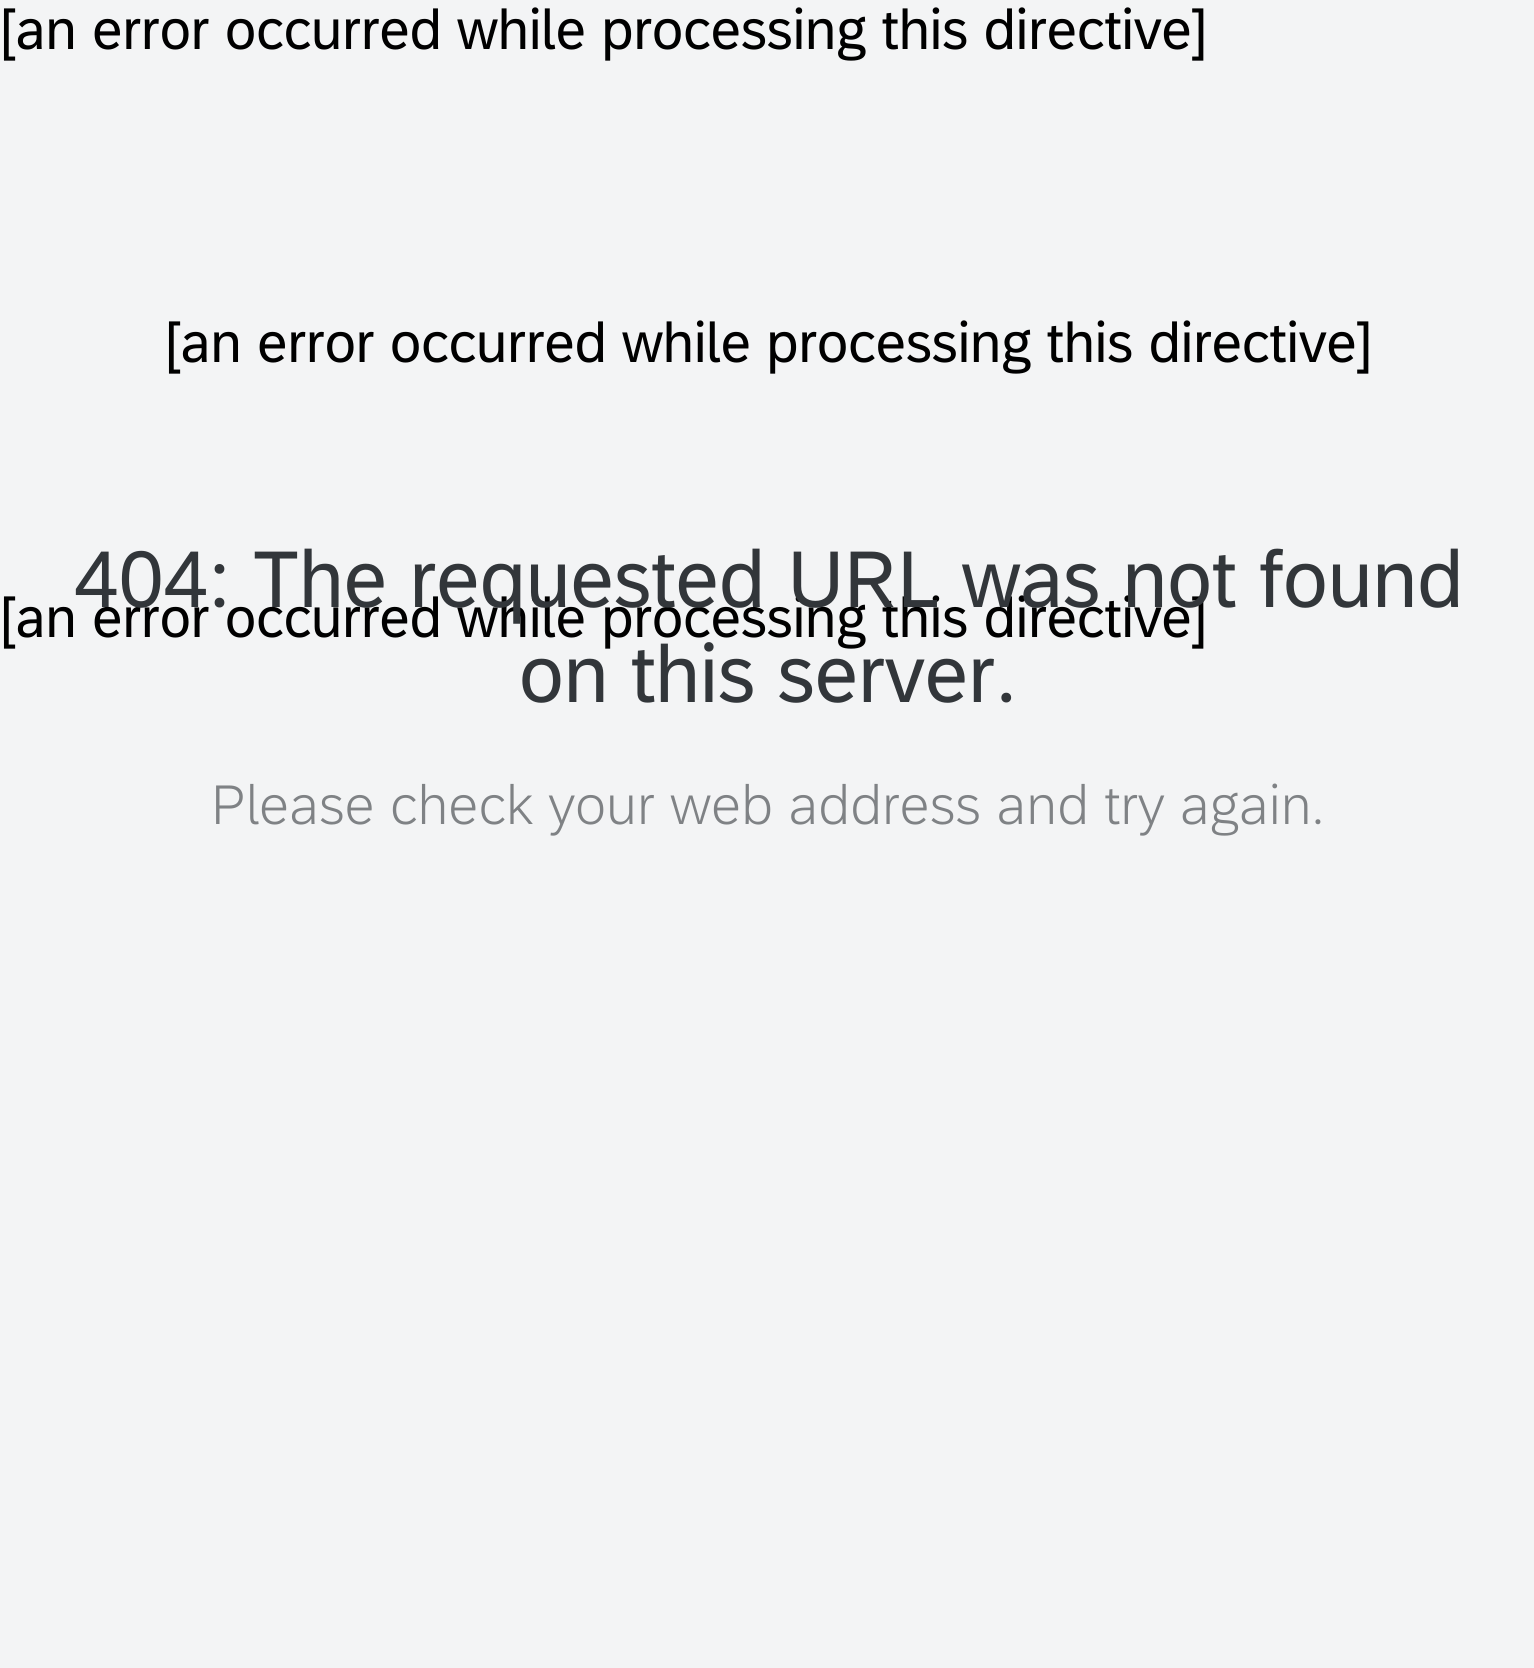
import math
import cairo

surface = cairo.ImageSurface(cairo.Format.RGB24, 1534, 1668)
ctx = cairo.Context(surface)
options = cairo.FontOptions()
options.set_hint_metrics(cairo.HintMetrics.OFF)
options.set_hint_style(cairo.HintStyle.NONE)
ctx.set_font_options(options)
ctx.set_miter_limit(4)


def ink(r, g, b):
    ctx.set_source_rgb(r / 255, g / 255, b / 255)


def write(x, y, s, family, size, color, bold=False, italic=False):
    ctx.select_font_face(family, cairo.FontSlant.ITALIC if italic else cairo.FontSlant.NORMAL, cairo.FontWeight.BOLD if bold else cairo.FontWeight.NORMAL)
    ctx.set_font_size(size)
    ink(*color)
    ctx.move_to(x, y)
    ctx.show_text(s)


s1 = dict(family="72", size=56, color=(0, 0, 0))
s2 = dict(family="72", size=80.5, color=(50, 54, 58))
s3 = dict(family="72 Light", size=56, color=(127, 130, 133))

ink(243, 244, 245)
ctx.paint()
write(0, 49, "[an error occurred while processing this directive]", **s1)
write(165, 362, "[an error occurred while processing this directive]", **s1)
write(0, 637, "[an error occurred while processing this directive]", **s1)
write(74, 607, "404: The requested URL was not found", **s2)
write(519, 702, "on this server.", **s2)
write(211, 824, "Please check your web address and try again.", **s3)
surface.write_to_png("screenshot.png")
